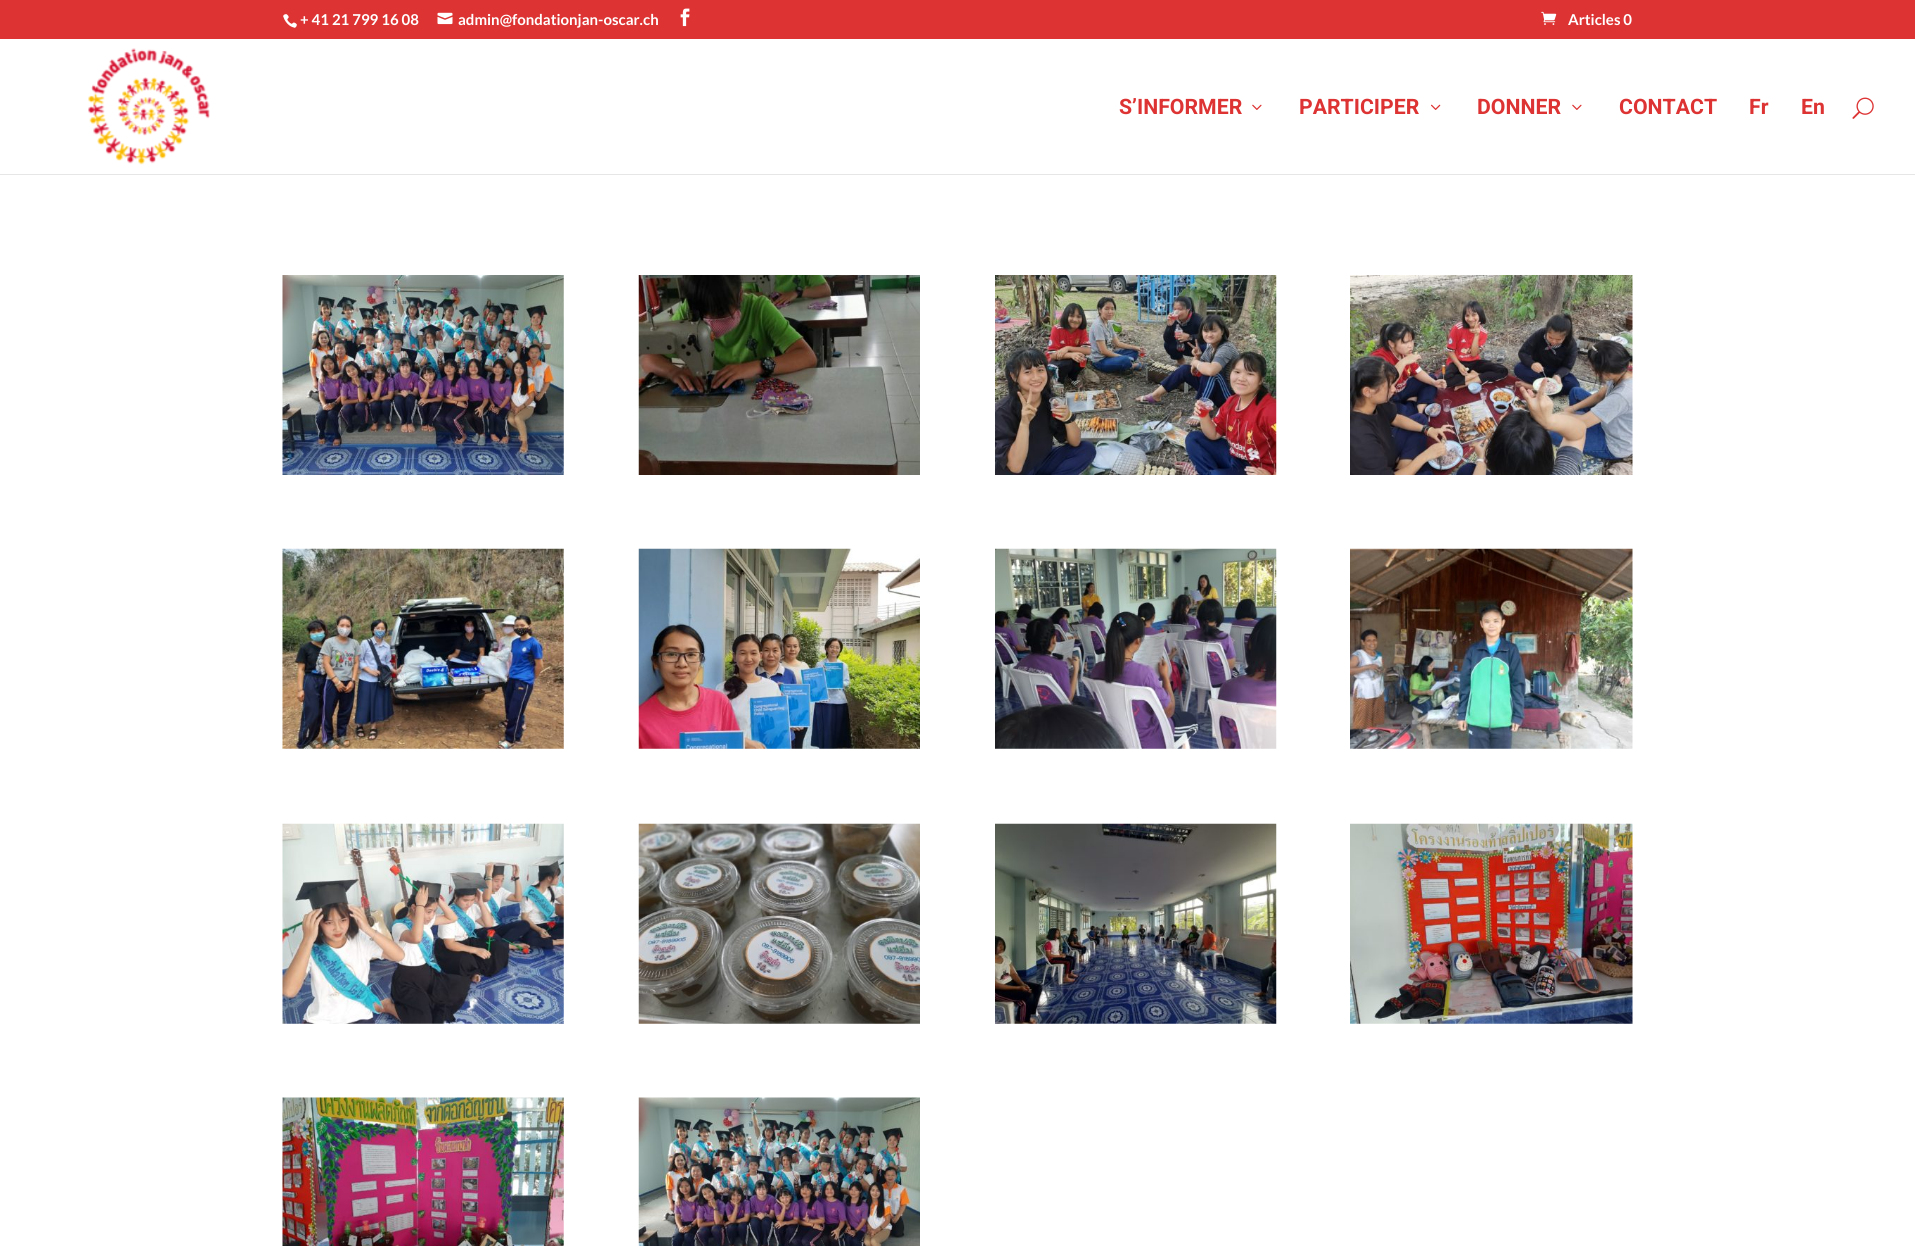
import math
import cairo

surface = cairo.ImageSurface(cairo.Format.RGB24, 1915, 1246)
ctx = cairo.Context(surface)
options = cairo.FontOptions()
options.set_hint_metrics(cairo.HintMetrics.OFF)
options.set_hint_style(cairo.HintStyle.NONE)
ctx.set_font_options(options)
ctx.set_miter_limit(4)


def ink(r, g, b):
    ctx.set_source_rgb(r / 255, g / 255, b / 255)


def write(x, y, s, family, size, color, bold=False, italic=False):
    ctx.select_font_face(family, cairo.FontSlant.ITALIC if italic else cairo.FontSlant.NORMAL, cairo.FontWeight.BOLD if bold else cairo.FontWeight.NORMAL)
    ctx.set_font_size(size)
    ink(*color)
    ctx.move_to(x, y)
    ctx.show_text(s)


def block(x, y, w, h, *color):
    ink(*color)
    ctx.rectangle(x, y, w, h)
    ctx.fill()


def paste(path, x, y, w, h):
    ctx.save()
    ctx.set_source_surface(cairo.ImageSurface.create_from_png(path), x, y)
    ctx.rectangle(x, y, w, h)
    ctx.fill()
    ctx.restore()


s1 = dict(family="Lato", size=15, color=(255, 255, 255), bold=True)
s2 = dict(family="Roboto", size=21.25, color=(221, 51, 51), bold=True)

ink(255, 255, 255)
ctx.paint()
block(0, 0, 1915, 39, 221, 51, 51)
paste("pic1.png", 283, 14, 14, 14)
write(300, 25, "+ 41 21 799 16 08", **s1)
paste("pic2.png", 437, 12, 16, 13)
write(458, 25, "admin@fondationjan-oscar.ch", **s1)
paste("pic3.png", 680, 8, 10, 19)
paste("pic4.png", 1541, 11, 16, 14)
write(1568, 25, "Articles 0", **s1)
block(0, 174, 1915, 1, 230, 230, 230)
paste("pic5.png", 88, 48, 122, 117)
write(1119, 114, "S’INFORMER", **s2)
paste("pic6.png", 1252, 104, 10, 6)
write(1299, 114, "PARTICIPER", **s2)
paste("pic7.png", 1431, 104, 10, 6)
write(1477, 114, "DONNER", **s2)
paste("pic6.png", 1572, 104, 10, 6)
write(1619, 114, "CONTACT", **s2)
write(1749, 114, "Fr", **s2)
write(1801, 114, "En", **s2)
paste("pic8.png", 1852, 97, 22, 22)
paste("pic9.png", 282, 275, 282, 200)
paste("pic10.png", 638, 275, 282, 200)
paste("pic11.png", 995, 275, 282, 200)
paste("pic12.png", 1350, 275, 283, 200)
paste("pic13.png", 282, 548, 282, 201)
paste("pic14.png", 638, 548, 282, 201)
paste("pic15.png", 995, 548, 282, 201)
paste("pic16.png", 1350, 548, 283, 201)
paste("pic17.png", 282, 823, 282, 201)
paste("pic18.png", 638, 823, 282, 201)
paste("pic19.png", 995, 823, 282, 201)
paste("pic20.png", 1350, 823, 283, 201)
paste("pic21.png", 282, 1097, 282, 149)
paste("pic22.png", 638, 1097, 282, 149)
surface.write_to_png("screenshot.png")
